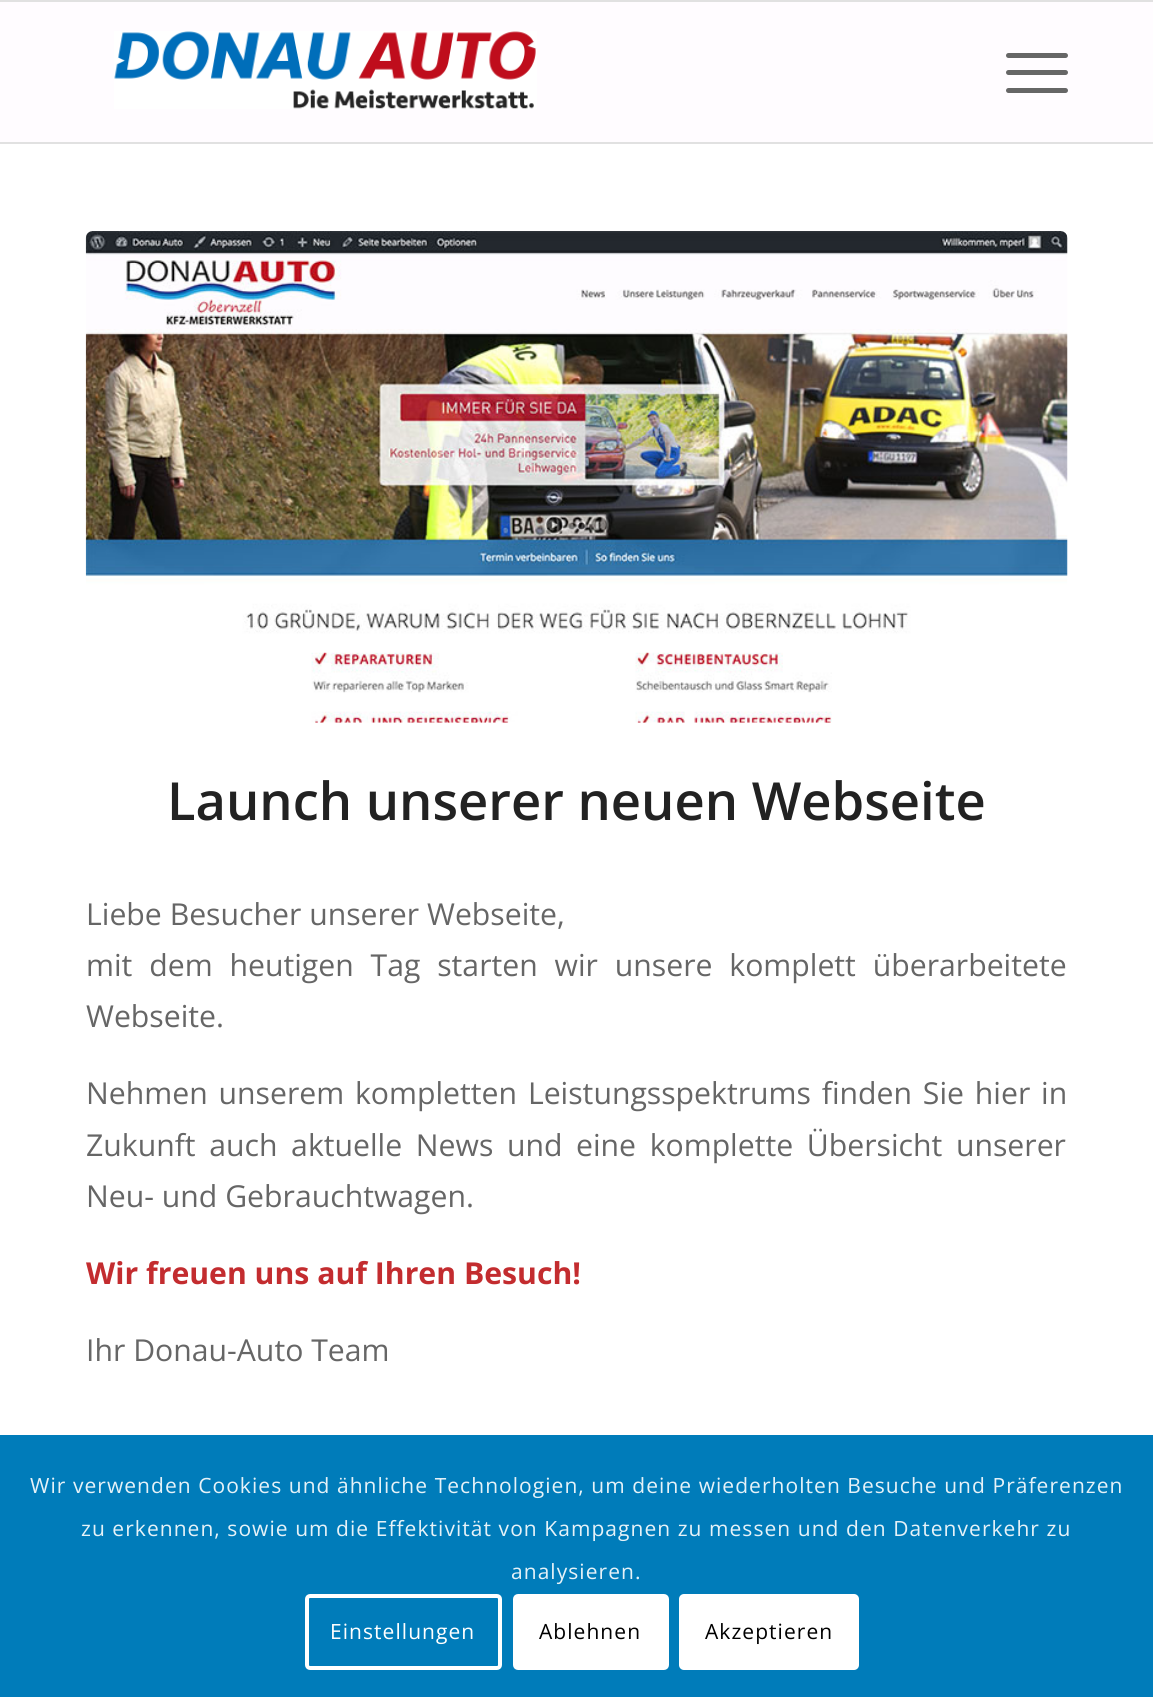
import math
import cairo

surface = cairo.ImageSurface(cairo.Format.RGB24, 1153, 1697)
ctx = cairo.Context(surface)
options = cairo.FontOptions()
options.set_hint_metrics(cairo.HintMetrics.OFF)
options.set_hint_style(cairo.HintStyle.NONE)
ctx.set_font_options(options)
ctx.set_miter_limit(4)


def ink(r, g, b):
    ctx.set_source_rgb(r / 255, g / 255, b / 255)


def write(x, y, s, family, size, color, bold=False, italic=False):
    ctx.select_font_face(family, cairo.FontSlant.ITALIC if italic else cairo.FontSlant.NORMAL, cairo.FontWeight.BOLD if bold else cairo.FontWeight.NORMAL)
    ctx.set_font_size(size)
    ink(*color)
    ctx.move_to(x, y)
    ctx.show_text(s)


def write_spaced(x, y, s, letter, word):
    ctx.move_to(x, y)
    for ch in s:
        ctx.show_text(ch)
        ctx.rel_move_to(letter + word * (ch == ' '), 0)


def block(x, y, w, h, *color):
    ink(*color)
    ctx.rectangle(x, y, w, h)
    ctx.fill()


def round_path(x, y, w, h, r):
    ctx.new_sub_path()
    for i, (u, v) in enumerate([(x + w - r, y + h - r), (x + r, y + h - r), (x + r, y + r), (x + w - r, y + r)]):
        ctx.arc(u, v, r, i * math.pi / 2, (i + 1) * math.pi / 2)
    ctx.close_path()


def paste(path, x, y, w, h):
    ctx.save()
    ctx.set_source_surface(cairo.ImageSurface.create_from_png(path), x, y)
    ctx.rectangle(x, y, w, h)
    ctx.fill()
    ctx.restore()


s1 = dict(family="Open Sans SemiBold", size=52.5, color=(34, 34, 34))
s2 = dict(family="Open Sans", size=30.2, color=(102, 102, 102))
s3 = dict(family="Open Sans", size=30.2, color=(195, 44, 47), bold=True)

ink(255, 255, 255)
ctx.paint()
block(0, 0, 1153, 2, 225, 225, 225)
block(0, 142, 1153, 2, 225, 225, 225)
block(0, 2, 1153, 140, 255, 252, 255)
paste("pic1.png", 114, 31, 423, 78)
ink(102, 102, 102)
round_path(1006, 70, 62, 5, 2.5)
ctx.fill()
round_path(1006, 53, 62, 5, 2.5)
ctx.fill()
round_path(1006, 88, 62, 5, 2.5)
ctx.fill()
paste("pic2.png", 85, 231, 983, 492)
write(167, 820, "Launch unserer neuen Webseite", **s1)
write(86, 925, "Liebe Besucher unserer Webseite,", **s2)
write_spaced(86, 976, "mit dem heutigen Tag starten wir unsere komplett überarbeitete", 0, 9)
write(86, 1027, "Webseite.", **s2)
write_spaced(86, 1104, "Nehmen unserem kompletten Leistungsspektrums finden Sie hier in", 0, 3)
write_spaced(86, 1156, "Zukunft auch aktuelle News und eine komplette Übersicht unserer", 0, 5.75)
write(86, 1207, "Neu- und Gebrauchtwagen.", **s2)
write(86, 1284, "Wir freuen uns auf Ihren Besuch!", **s3)
write(86, 1361, "Ihr Donau-Auto Team", **s2)
block(0, 1435, 1153, 262, 0, 124, 186)
ctx.set_font_size(21)
ink(230, 242, 248)
write_spaced(30, 1493, "Wir verwenden Cookies und ähnliche Technologien, um deine wiederholten Besuche und Präferenzen", 1.05, 0)
write_spaced(81, 1536, "zu erkennen, sowie um die Effektivität von Kampagnen zu messen und den Datenverkehr zu", 1.05, 0)
write_spaced(511, 1579, "analysieren.", 1.05, 0)
round_path(307, 1596, 193, 72, 3)
ink(255, 255, 255)
ctx.set_line_width(4)
ctx.stroke()
write_spaced(330, 1639, "Einstellungen", 1.05, 0)
round_path(515, 1596, 152, 72, 3)
ctx.fill_preserve()
ctx.stroke()
ink(0, 0, 0)
write_spaced(539, 1639, "Ablehnen", 1.05, 0)
ink(255, 255, 255)
round_path(679, 1594, 180, 76, 5)
ctx.fill()
ink(0, 0, 0)
write_spaced(705, 1639, "Akzeptieren", 1.05, 0)
surface.write_to_png("screenshot.png")
